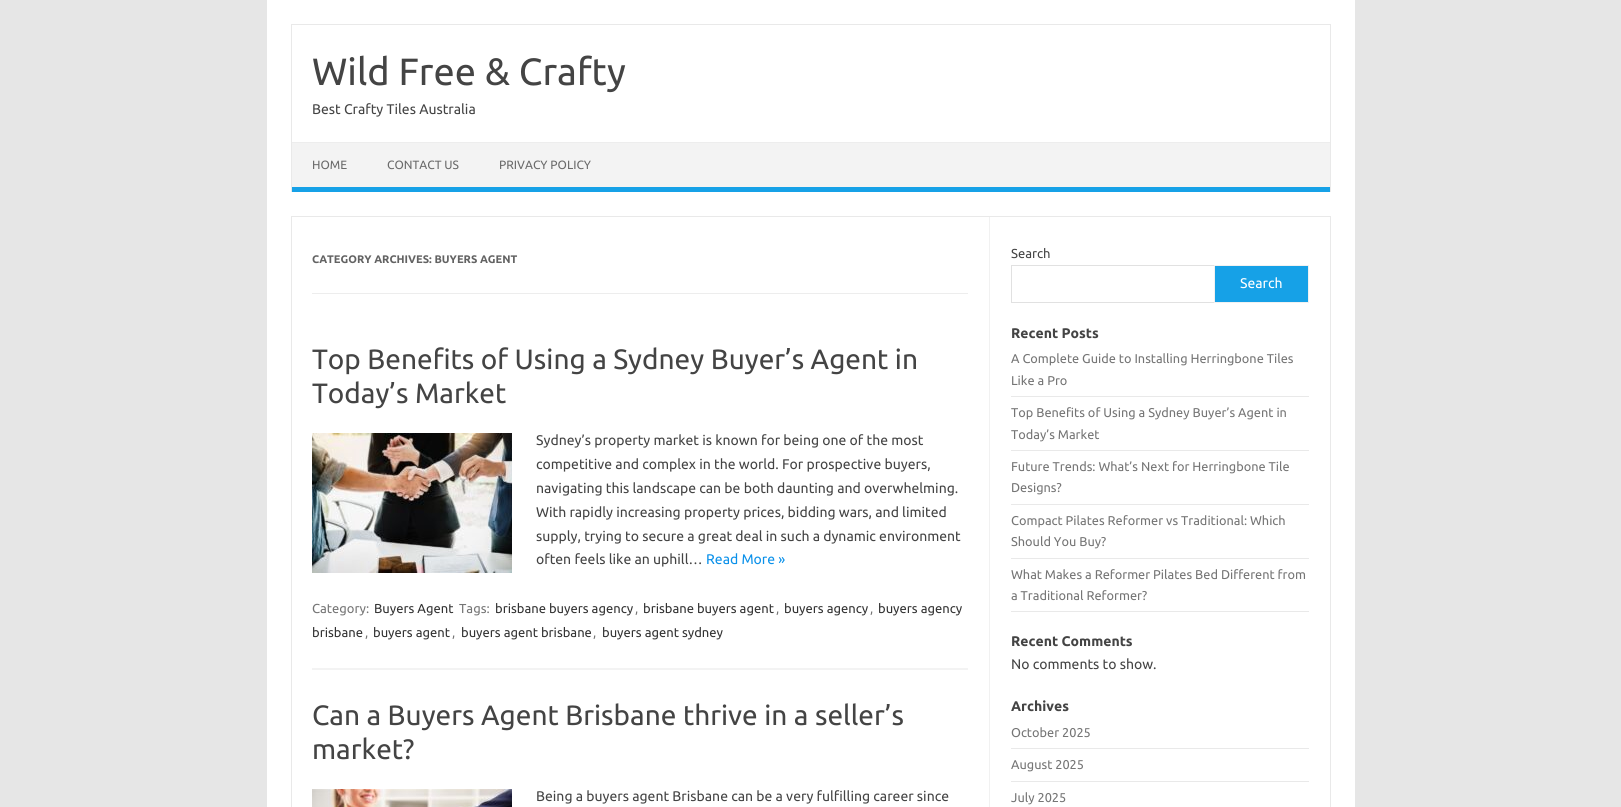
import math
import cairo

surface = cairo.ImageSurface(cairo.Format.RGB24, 1621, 807)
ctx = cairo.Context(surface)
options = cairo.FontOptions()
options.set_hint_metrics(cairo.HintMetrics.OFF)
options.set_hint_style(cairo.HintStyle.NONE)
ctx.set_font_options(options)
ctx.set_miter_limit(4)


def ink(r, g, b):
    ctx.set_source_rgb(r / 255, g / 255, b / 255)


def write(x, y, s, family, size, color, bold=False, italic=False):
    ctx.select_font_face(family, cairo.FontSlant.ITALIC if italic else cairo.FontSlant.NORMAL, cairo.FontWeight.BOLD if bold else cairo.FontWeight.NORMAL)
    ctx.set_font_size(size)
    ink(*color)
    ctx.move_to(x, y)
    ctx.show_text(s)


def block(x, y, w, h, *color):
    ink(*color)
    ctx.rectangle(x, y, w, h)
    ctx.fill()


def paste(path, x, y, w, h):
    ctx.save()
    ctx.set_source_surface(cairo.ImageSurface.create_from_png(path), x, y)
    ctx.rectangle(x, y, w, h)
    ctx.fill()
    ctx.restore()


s1 = dict(family="Ubuntu", size=38, color=(68, 68, 68))
s2 = dict(family="Ubuntu", size=14, color=(68, 68, 68))
s3 = dict(family="Ubuntu", size=12, color=(106, 106, 106))
s4 = dict(family="Ubuntu", size=11, color=(99, 99, 99), bold=True)
s5 = dict(family="Ubuntu", size=28, color=(68, 68, 68))
s6 = dict(family="Ubuntu", size=14, color=(11, 145, 234))
s7 = dict(family="Ubuntu", size=13, color=(117, 117, 117))
s8 = dict(family="Ubuntu", size=13, color=(51, 51, 51))
s9 = dict(family="Ubuntu", size=13, color=(68, 68, 68))
s10 = dict(family="Ubuntu", size=14, color=(255, 255, 255))
s11 = dict(family="Ubuntu", size=14, color=(68, 68, 68), bold=True)
s12 = dict(family="Ubuntu", size=12.75, color=(117, 117, 117))

ink(230, 230, 230)
ctx.paint()
block(267, 0, 1088, 807, 255, 255, 255)
block(291, 24, 1040, 1, 233, 233, 233)
block(1330, 24, 1, 168, 233, 233, 233)
block(291, 24, 1, 168, 233, 233, 233)
write(312, 85, "Wild Free & Crafty", **s1)
write(312, 114, "Best Crafty Tiles Australia", **s2)
block(292, 143, 1038, 44, 243, 243, 243)
block(292, 142, 1038, 1, 237, 237, 237)
block(292, 187, 1038, 5, 22, 161, 231)
write(312, 169, "HOME", **s3)
write(387, 169, "CONTACT US", **s3)
write(499, 169, "PRIVACY POLICY", **s3)
ctx.rectangle(291.5, 216.5, 1039, 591)
ink(233, 233, 233)
ctx.set_line_width(1)
ctx.stroke()
block(989, 217, 1, 590, 241, 241, 241)
block(312, 293, 656, 1, 237, 237, 237)
write(312, 263, "CATEGORY ARCHIVES: BUYERS AGENT", **s4)
block(312, 668, 656, 2, 243, 243, 243)
write(312, 369, "Top Benefits of Using a Sydney Buyer’s Agent in", **s5)
write(312, 403, "Today’s Market", **s5)
paste("pic1.png", 312, 433, 200, 140)
write(536, 445, "Sydney’s property market is known for being one of the most", **s2)
write(536, 469, "competitive and complex in the world. For prospective buyers,", **s2)
write(536, 493, "navigating this landscape can be both daunting and overwhelming.", **s2)
write(536, 517, "With rapidly increasing property prices, bidding wars, and limited", **s2)
write(536, 541, "supply, trying to secure a great deal in such a dynamic environment", **s2)
write(536, 564, "often feels like an uphill…", **s2)
write(706, 564, "Read More »", **s6)
write(312, 613, "Category:", **s7)
write(374, 613, "Buyers Agent", **s8)
write(459, 613, "Tags:", **s7)
write(495, 613, "brisbane buyers agency", **s8)
write(635, 613, ",", **s7)
write(643, 613, "brisbane buyers agent", **s8)
write(776, 613, ",", **s7)
write(784, 613, "buyers agency", **s8)
write(870, 613, ",", **s7)
write(878, 613, "buyers agency", **s8)
write(312, 637, "brisbane", **s8)
write(365, 637, ",", **s7)
write(373, 637, "buyers agent", **s8)
write(452, 637, ",", **s7)
write(461, 637, "buyers agent brisbane", **s8)
write(593, 637, ",", **s7)
write(602, 637, "buyers agent sydney", **s8)
write(312, 725, "Can a Buyers Agent Brisbane thrive in a seller’s", **s5)
write(312, 759, "market?", **s5)
paste("pic2.png", 312, 789, 200, 18)
write(536, 801, "Being a buyers agent Brisbane can be a very fulfilling career since", **s2)
write(1011, 258, "Search", **s9)
ctx.rectangle(1011.5, 265.5, 204, 37)
ink(225, 225, 225)
ctx.stroke()
ink(22, 161, 231)
ctx.rectangle(1214.5, 265.5, 94, 37)
ctx.fill_preserve()
ink(241, 241, 241)
ctx.stroke()
write(1240, 288, "Search", **s10)
write(1011, 338, "Recent Posts", **s11)
block(1011, 396, 298, 1, 233, 233, 233)
write(1011, 363, "A Complete Guide to Installing Herringbone Tiles", **s12)
write(1011, 385, "Like a Pro", **s12)
block(1011, 450, 298, 1, 233, 233, 233)
write(1011, 417, "Top Benefits of Using a Sydney Buyer’s Agent in", **s12)
write(1011, 439, "Today’s Market", **s12)
block(1011, 504, 298, 1, 233, 233, 233)
write(1011, 471, "Future Trends: What’s Next for Herringbone Tile", **s12)
write(1011, 492, "Designs?", **s12)
block(1011, 558, 298, 1, 233, 233, 233)
write(1011, 525, "Compact Pilates Reformer vs Traditional: Which", **s12)
write(1011, 546, "Should You Buy?", **s12)
block(1011, 611, 298, 1, 233, 233, 233)
write(1011, 579, "What Makes a Reformer Pilates Bed Different from", **s12)
write(1011, 600, "a Traditional Reformer?", **s12)
write(1011, 646, "Recent Comments", **s11)
write(1011, 669, "No comments to show.", **s2)
write(1011, 711, "Archives", **s11)
block(1011, 748, 298, 1, 233, 233, 233)
write(1011, 737, "October 2025", **s12)
block(1011, 781, 298, 1, 233, 233, 233)
write(1011, 769, "August 2025", **s12)
write(1011, 802, "July 2025", **s12)
surface.write_to_png("screenshot.png")
